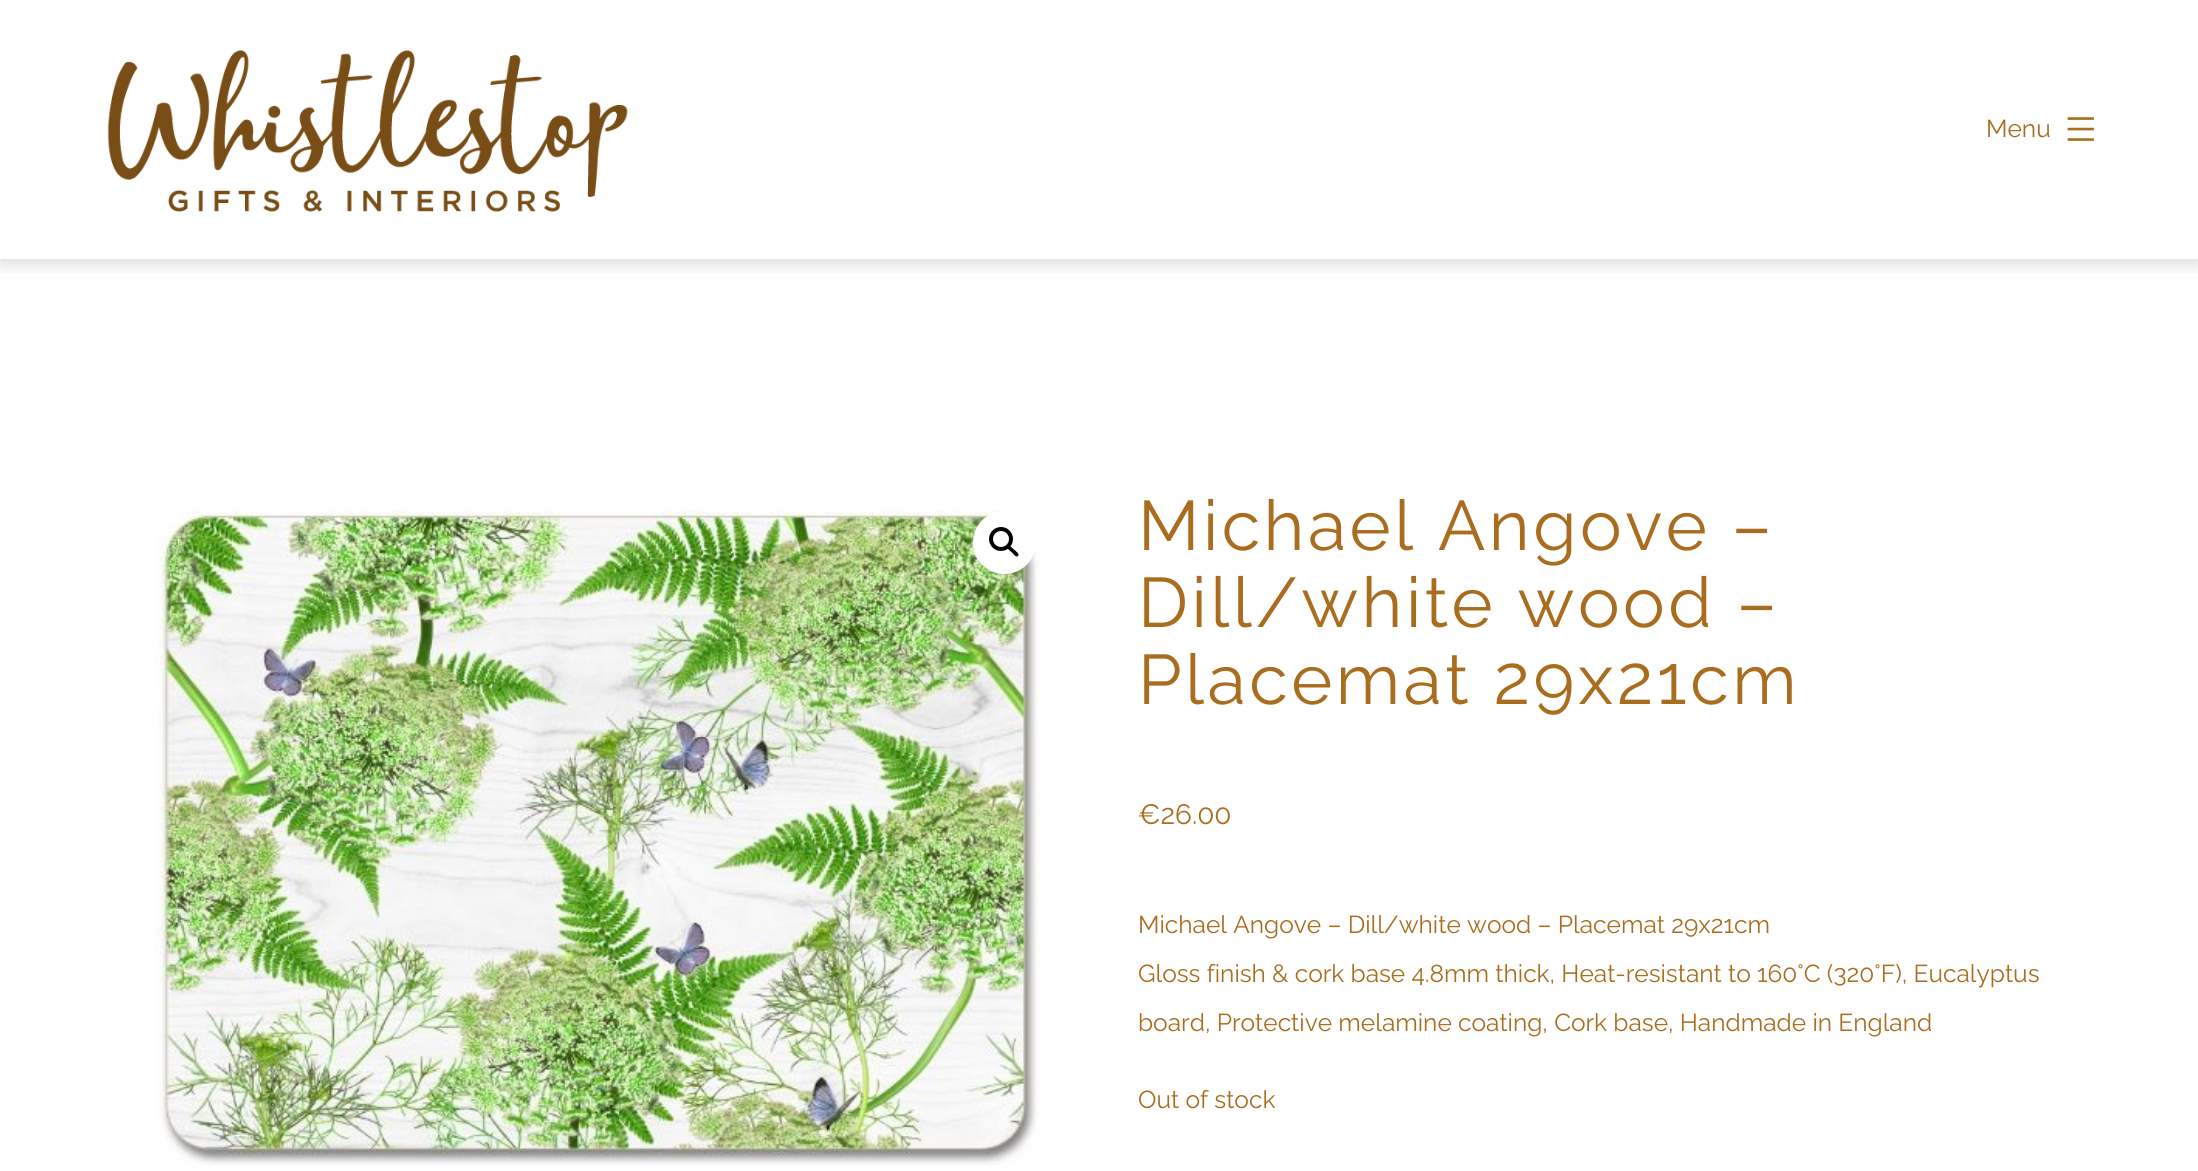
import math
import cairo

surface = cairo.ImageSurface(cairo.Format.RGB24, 2198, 1171)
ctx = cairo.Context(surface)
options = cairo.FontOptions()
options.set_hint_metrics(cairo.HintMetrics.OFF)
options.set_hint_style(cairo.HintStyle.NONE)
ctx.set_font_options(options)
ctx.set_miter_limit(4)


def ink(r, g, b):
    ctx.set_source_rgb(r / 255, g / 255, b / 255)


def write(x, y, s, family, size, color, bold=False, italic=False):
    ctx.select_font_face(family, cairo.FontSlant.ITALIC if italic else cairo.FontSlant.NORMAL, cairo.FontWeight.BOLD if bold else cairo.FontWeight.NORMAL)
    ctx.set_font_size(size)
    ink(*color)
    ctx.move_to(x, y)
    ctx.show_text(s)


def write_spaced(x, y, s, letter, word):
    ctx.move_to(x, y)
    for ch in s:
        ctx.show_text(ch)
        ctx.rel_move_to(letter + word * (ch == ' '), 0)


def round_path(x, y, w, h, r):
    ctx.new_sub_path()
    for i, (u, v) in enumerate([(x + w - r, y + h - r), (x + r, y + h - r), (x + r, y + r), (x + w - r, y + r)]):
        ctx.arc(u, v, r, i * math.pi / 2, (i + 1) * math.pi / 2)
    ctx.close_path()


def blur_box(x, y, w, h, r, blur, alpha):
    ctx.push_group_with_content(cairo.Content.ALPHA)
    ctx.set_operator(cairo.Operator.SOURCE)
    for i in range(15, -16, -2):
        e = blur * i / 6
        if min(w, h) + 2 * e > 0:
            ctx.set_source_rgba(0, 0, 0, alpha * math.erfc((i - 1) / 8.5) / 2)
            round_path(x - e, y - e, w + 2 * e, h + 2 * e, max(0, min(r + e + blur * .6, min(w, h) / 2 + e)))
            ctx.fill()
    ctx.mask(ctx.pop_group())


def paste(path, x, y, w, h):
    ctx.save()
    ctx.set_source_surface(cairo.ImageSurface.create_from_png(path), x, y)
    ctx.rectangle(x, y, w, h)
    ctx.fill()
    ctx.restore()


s1 = dict(family="Raleway", size=24.5, color=(170, 109, 31))
s2 = dict(family="Raleway", size=28, color=(170, 109, 31))

ink(255, 255, 255)
ctx.paint()
ctx.save()
ctx.rectangle(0, 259, 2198, 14)
ctx.clip()
ink(0, 0, 0)
blur_box(0, 4, 2198, 259, 0, 9, 0.16)
ctx.restore()
paste("pic1.png", 107, 49, 521, 163)
write(1986, 137, "Menu", **s1)
paste("pic2.png", 2067, 117, 27, 24)
paste("pic3.png", 155, 510, 888, 655)
ink(255, 255, 255)
ctx.arc(1004.5, 542.5, 31.5, 0, 2 * math.pi)
ctx.fill()
ctx.arc(1001, 539, 10, 0, 2 * math.pi)
ink(0, 0, 0)
ctx.set_line_width(4)
ctx.stroke()
ctx.new_path()
ctx.move_to(1008, 546.5)
ctx.curve_to(1010, 544.5, 1013, 549, 1014.5, 550)
ctx.curve_to(1015.5, 551, 1020, 554, 1018, 556)
ctx.curve_to(1016, 558, 1013, 553.5, 1012, 552.5)
ctx.curve_to(1011, 551.5, 1006, 548.5, 1008, 546.5)
ctx.close_path()
ctx.fill()
ctx.set_font_size(70)
ink(170, 109, 31)
write_spaced(1138, 550, "Michael Angove –", 3.5, 0)
write_spaced(1138, 627, "Dill/white wood –", 3.5, 0)
write_spaced(1138, 704, "Placemat 29x21cm", 3.5, 0)
write(1138, 824, "€26.00", **s2)
write(1138, 933, "Michael Angove – Dill/white wood – Placemat 29x21cm", **s1)
write(1138, 982, "Gloss finish & cork base 4.8mm thick, Heat-resistant to 160°C (320°F), Eucalyptus", **s1)
write(1138, 1031, "board, Protective melamine coating, Cork base, Handmade in England", **s1)
write(1138, 1108, "Out of stock", **s1)
surface.write_to_png("screenshot.png")
